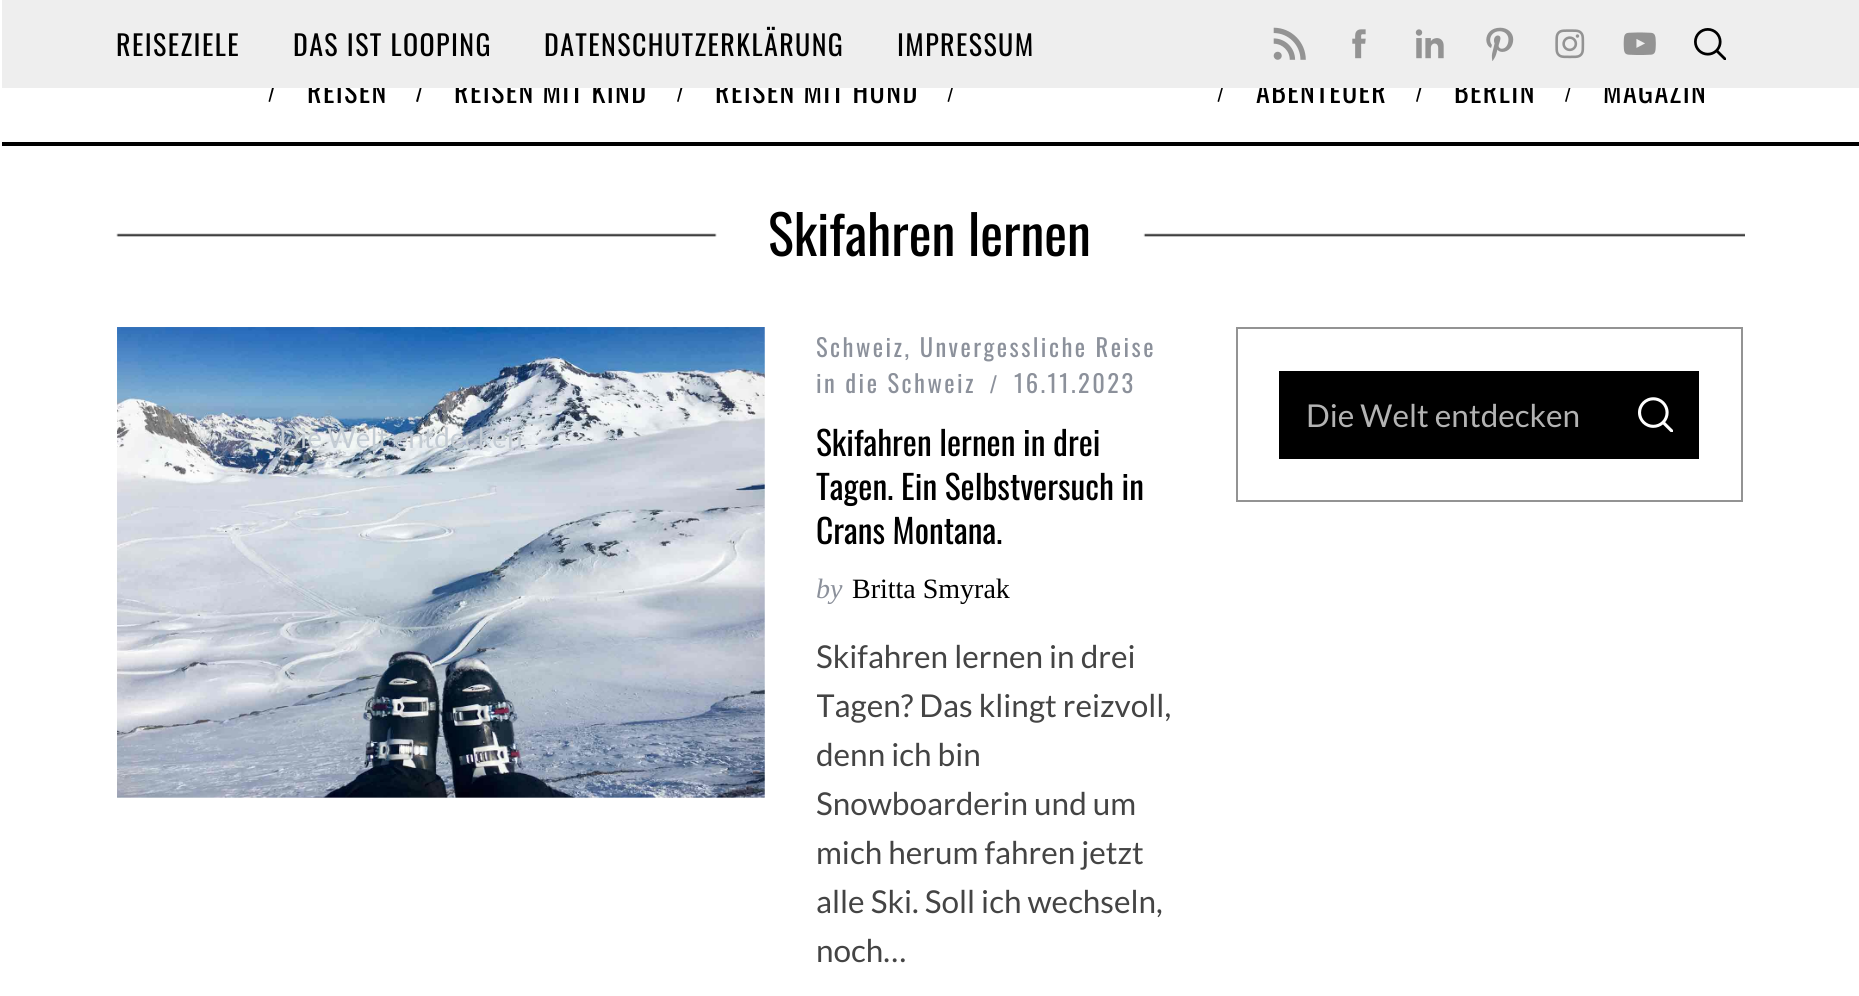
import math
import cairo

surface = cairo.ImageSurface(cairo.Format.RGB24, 1859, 996)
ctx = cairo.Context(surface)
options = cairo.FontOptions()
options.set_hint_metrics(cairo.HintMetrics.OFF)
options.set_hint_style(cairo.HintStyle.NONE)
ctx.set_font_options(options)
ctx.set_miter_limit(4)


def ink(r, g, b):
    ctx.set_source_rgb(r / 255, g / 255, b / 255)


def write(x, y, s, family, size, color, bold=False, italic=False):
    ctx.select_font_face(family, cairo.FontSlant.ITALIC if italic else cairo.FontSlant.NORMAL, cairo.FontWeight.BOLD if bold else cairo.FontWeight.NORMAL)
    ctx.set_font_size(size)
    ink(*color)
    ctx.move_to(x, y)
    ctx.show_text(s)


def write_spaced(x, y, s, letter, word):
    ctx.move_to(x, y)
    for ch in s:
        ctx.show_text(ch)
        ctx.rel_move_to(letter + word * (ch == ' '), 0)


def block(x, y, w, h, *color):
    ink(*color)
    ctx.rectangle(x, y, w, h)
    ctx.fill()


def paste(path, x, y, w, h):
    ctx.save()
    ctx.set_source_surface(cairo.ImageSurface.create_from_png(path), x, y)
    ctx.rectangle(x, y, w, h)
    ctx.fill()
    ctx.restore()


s1 = dict(family="Lato", size=28, color=(195, 203, 211))
s2 = dict(family="Oswald", size=54.25, color=(0, 0, 0))
s3 = dict(family="Oswald", size=33.5, color=(0, 0, 0))
s4 = dict(family="Liberation Serif", size=28, color=(140, 145, 155), italic=True)
s5 = dict(family="Liberation Serif", size=28, color=(0, 0, 0))
s6 = dict(family="Lato", size=31.5, color=(68, 68, 68))
s7 = dict(family="Lato", size=31.5, color=(179, 179, 179))

ink(255, 255, 255)
ctx.paint()
ink(0, 0, 0)
ctx.new_path()
ctx.move_to(274, 80)
ctx.line_to(276, 80.5)
ctx.line_to(270, 102)
ctx.line_to(268.5, 101.5)
ctx.close_path()
ctx.fill()
ctx.select_font_face("Oswald")
ctx.set_font_size(28)
write_spaced(307, 103, "REISEN", 1.4, 0)
ctx.new_path()
ctx.move_to(422, 80)
ctx.line_to(423.5, 80.5)
ctx.line_to(418, 102)
ctx.line_to(416, 101.5)
ctx.close_path()
ctx.fill()
write_spaced(454, 103, "REISEN MIT KIND", 1.4, 0)
ctx.new_path()
ctx.move_to(682.5, 80)
ctx.line_to(684.5, 80.5)
ctx.line_to(678.5, 102)
ctx.line_to(677, 101.5)
ctx.close_path()
ctx.fill()
write_spaced(715, 103, "REISEN MIT HUND", 1.4, 0)
ctx.new_path()
ctx.move_to(953.5, 80)
ctx.line_to(955, 80.5)
ctx.line_to(949, 102)
ctx.line_to(947.5, 101.5)
ctx.close_path()
ctx.fill()
ctx.new_path()
ctx.move_to(1223.5, 80)
ctx.line_to(1225, 80.5)
ctx.line_to(1219, 102)
ctx.line_to(1217.5, 101.5)
ctx.close_path()
ctx.fill()
write_spaced(1256, 103, "ABENTEUER", 1.4, 0)
ctx.new_path()
ctx.move_to(1421.5, 80)
ctx.line_to(1423.5, 80.5)
ctx.line_to(1417.5, 102)
ctx.line_to(1416, 101.5)
ctx.close_path()
ctx.fill()
write_spaced(1454, 103, "BERLIN", 1.4, 0)
ctx.new_path()
ctx.move_to(1571, 80)
ctx.line_to(1572.5, 80.5)
ctx.line_to(1566.5, 102)
ctx.line_to(1565, 101.5)
ctx.close_path()
ctx.fill()
write_spaced(1603, 103, "MAGAZIN", 1.4, 0)
block(2, 0, 1857, 88, 238, 238, 238)
ink(0, 0, 0)
write_spaced(116, 56, "REISEZIELE", 1.4, 0)
write_spaced(293, 56, "DAS IST LOOPING", 1.4, 0)
write_spaced(544, 56, "DATENSCHUTZERKLÄRUNG", 1.4, 0)
write_spaced(897, 56, "IMPRESSUM", 1.4, 0)
paste("pic1.png", 1273, 27, 33, 33)
paste("pic2.png", 1352, 29, 14, 30)
paste("pic3.png", 1415, 29, 29, 30)
paste("pic4.png", 1486, 27, 28, 34)
paste("pic5.png", 1555, 29, 30, 30)
paste("pic6.png", 1623, 32, 33, 23)
paste("pic7.png", 1694, 28, 32, 32)
block(0, 142, 1859, 4, 0, 0, 0)
block(0, 142, 2, 4, 255, 255, 255)
paste("pic10.png", 117, 327, 648, 471)
write(279, 448, "Die Welt entdecken", **s1)
paste("pic8.png", 116, 233, 601, 4)
write(768, 256, "Skifahren lernen", **s2)
paste("pic9.png", 1143, 233, 602, 4)
ctx.set_font_size(24.5)
ink(140, 145, 155)
write_spaced(816, 357, "Schweiz, Unvergessliche Reise", 2.45, 0)
write_spaced(816, 393, "in die Schweiz", 2.45, 0)
ctx.select_font_face("Liberation Sans")
write_spaced(990, 393, "/", 2.45, 0)
ctx.select_font_face("Oswald")
write_spaced(1014, 393, "16.11.2023", 2.45, 0)
write(816, 456, "Skifahren lernen in drei", **s3)
write(816, 500, "Tagen. Ein Selbstversuch in", **s3)
write(816, 544, "Crans Montana.", **s3)
write(816, 598, "by", **s4)
write(852, 598, "Britta Smyrak", **s5)
write(816, 668, "Skifahren lernen in drei", **s6)
ctx.save()
ctx.rectangle(817, 632, 366, 343)
ctx.clip()
write(816, 717, "Tagen? Das klingt reizvoll,", **s6)
ctx.restore()
write(816, 766, "denn ich bin", **s6)
write(816, 815, "Snowboarderin und um", **s6)
write(816, 864, "mich herum fahren jetzt", **s6)
write(816, 913, "alle Ski. Soll ich wechseln,", **s6)
write(816, 962, "noch…", **s6)
ctx.rectangle(1237, 328, 505, 173)
ink(147, 147, 147)
ctx.stroke()
block(1279, 371, 420, 88, 0, 0, 0)
write(1306, 427, "Die Welt entdecken", **s7)
paste("pic11.png", 1638, 397, 35, 35)
surface.write_to_png("screenshot.png")
